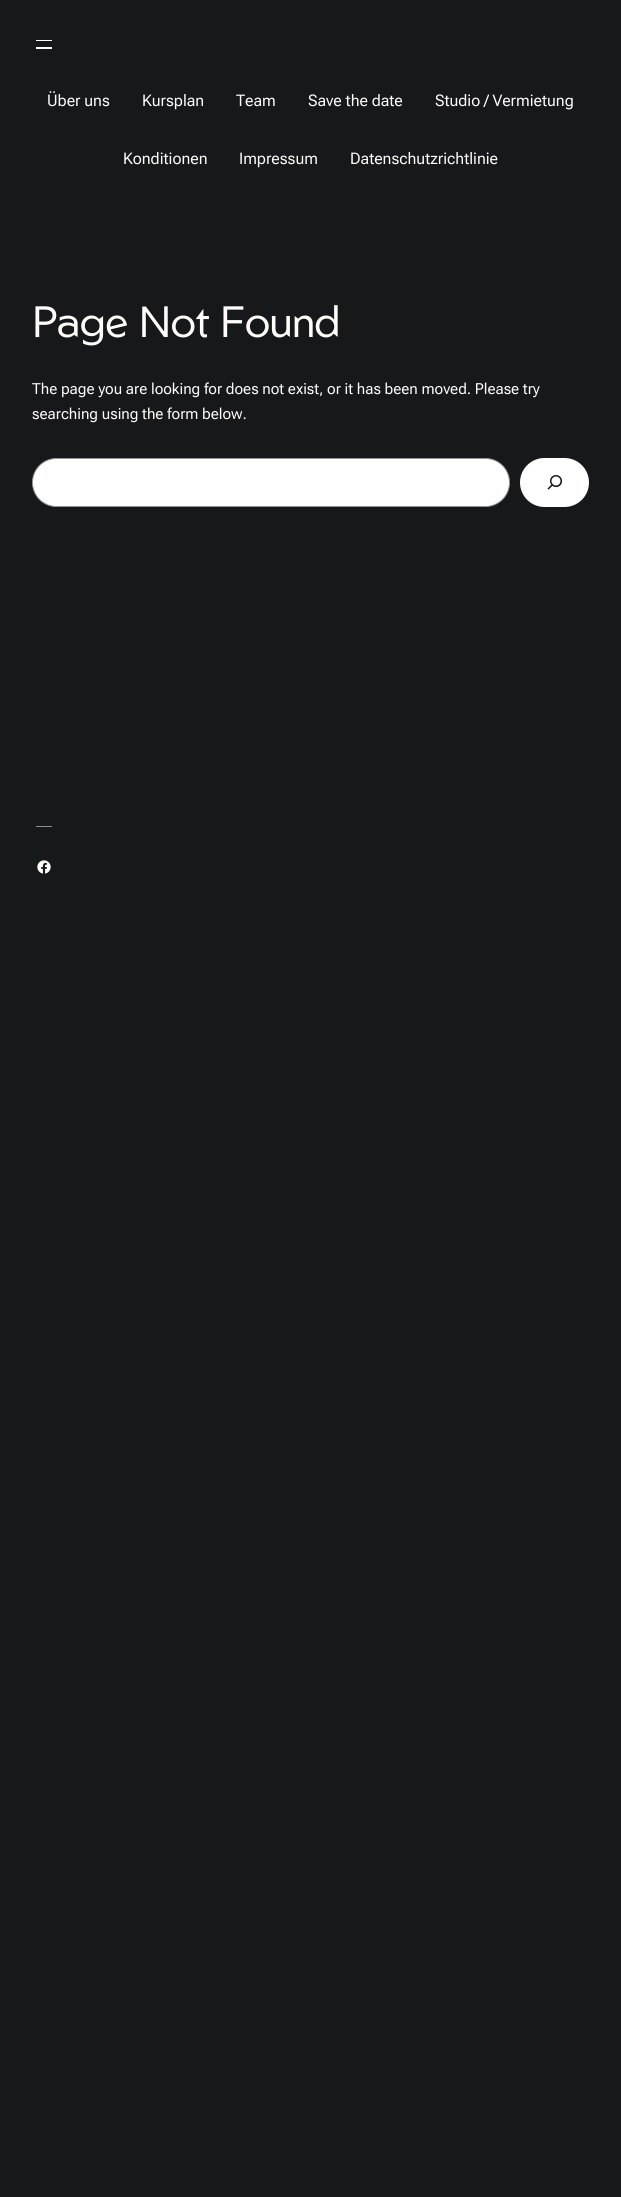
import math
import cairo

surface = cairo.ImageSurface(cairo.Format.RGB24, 621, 2197)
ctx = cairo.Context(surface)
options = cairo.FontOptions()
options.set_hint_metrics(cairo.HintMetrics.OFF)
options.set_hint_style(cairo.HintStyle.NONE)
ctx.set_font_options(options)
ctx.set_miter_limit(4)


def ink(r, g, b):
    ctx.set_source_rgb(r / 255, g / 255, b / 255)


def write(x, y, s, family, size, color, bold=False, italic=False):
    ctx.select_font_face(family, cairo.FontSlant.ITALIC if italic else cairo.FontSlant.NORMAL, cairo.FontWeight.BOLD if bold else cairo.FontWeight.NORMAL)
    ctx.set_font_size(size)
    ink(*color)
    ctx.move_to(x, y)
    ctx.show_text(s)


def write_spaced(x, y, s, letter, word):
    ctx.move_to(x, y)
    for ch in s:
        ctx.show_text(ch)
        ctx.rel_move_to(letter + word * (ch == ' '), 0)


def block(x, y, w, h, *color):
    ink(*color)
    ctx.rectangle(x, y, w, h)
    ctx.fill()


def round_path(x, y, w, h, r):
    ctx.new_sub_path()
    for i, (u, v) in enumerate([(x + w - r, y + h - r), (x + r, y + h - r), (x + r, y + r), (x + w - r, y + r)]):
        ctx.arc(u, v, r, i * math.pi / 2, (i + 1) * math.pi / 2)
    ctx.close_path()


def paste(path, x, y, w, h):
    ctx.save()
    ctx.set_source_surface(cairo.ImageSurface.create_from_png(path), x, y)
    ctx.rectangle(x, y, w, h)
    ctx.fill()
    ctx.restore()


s1 = dict(family="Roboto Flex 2", size=16, color=(255, 252, 252))
s2 = dict(family="Roboto Flex", size=15.25, color=(255, 252, 252))

ink(23, 24, 26)
ctx.paint()
block(36, 40, 16, 1, 255, 252, 252)
block(36, 47, 16, 2, 255, 252, 252)
write(47, 106, "Über uns", **s1)
write(142, 106, "Kursplan", **s1)
write(236, 106, "Team", **s1)
write(308, 106, "Save the date", **s1)
write(435, 106, "Studio / Vermietung", **s1)
write(123, 164, "Konditionen", **s1)
write(239, 164, "Impressum", **s1)
write(350, 164, "Datenschutzrichtlinie", **s1)
ctx.select_font_face("Geom Light")
ctx.set_font_size(43.5)
write_spaced(32, 337, "Page Not Found", -0.9, 0)
write(32, 394, "The page you are looking for does not exist, or it has been moved. Please try", **s2)
write(32, 419, "searching using the form below.", **s2)
ink(255, 255, 255)
round_path(32.5, 458.5, 477, 48, 24)
ctx.fill_preserve()
ink(148, 148, 148)
ctx.set_line_width(1)
ctx.stroke()
ink(255, 255, 255)
round_path(520, 458, 69, 49, 24.5)
ctx.fill()
paste("pic1.png", 547, 475, 16, 15)
block(36, 826, 16, 1, 141, 141, 142)
paste("pic2.png", 37, 860, 14, 14)
surface.write_to_png("screenshot.png")
